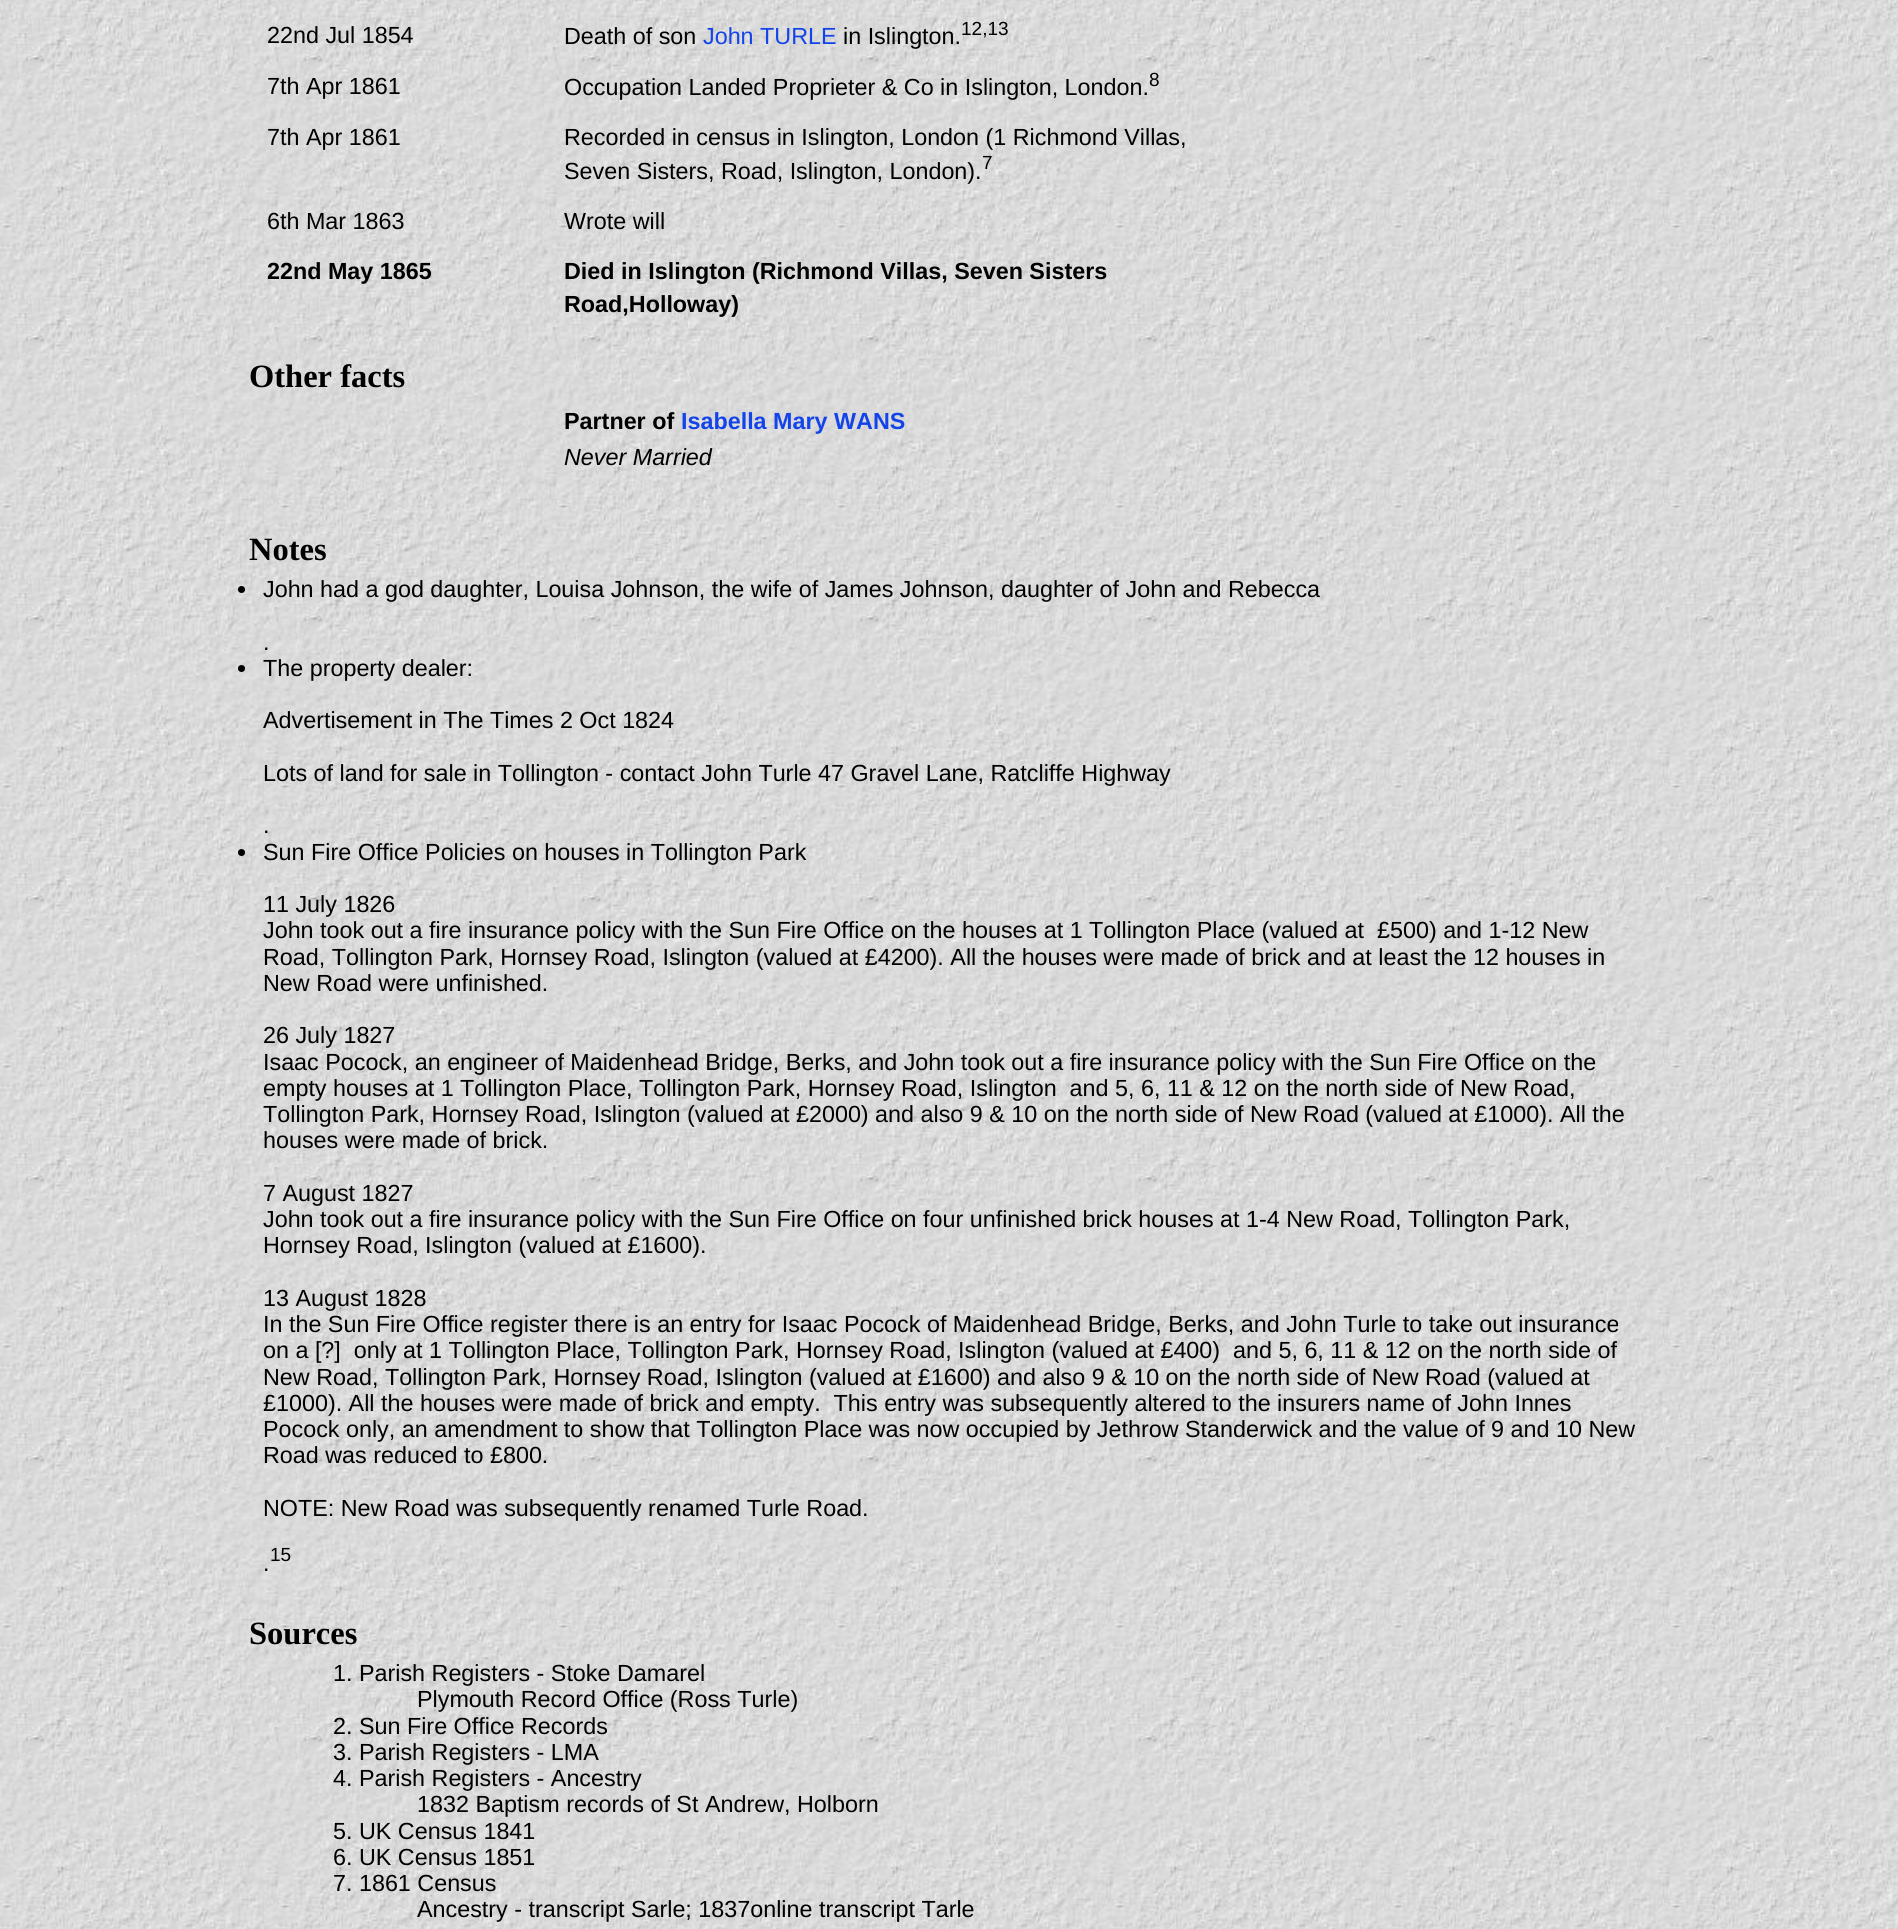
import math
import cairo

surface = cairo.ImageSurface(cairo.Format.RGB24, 1898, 1929)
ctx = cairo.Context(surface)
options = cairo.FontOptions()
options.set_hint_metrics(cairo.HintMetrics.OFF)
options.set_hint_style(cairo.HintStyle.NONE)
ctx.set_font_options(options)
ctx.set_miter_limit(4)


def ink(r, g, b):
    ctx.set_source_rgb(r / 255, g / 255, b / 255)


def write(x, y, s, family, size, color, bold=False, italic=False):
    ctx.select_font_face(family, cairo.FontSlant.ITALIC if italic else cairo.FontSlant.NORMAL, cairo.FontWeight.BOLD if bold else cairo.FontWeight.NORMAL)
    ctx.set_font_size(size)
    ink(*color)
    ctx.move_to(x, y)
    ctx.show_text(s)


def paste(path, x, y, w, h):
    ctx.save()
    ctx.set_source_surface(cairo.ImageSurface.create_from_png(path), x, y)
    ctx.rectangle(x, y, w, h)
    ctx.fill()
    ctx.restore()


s1 = dict(family="Liberation Sans", size=23.33, color=(0, 0, 0))
s2 = dict(family="Liberation Sans", size=23.33, color=(19, 68, 233))
s3 = dict(family="Liberation Sans", size=19, color=(0, 0, 0))
s4 = dict(family="Liberation Sans", size=23.33, color=(0, 0, 0), bold=True)
s5 = dict(family="Liberation Serif", size=32.5, color=(0, 0, 0), bold=True)
s6 = dict(family="Liberation Sans", size=23.33, color=(19, 68, 233), bold=True)
s7 = dict(family="Liberation Sans", size=23.33, color=(0, 0, 0), italic=True)

ink(255, 255, 255)
ctx.paint()
paste("pic1.png", 0, 0, 1898, 1929)
write(267, 43, "22nd Jul 1854", **s1)
write(564, 44, "Death of son", **s1)
write(703, 44, "John TURLE", **s2)
write(843, 44, "in Islington.", **s1)
write(961, 35, "12,13", **s3)
write(267, 94, "7th Apr 1861", **s1)
write(564, 95, "Occupation Landed Proprieter & Co in Islington, London.", **s1)
write(1149, 86, "8", **s3)
write(267, 145, "7th Apr 1861", **s1)
write(564, 145, "Recorded in census in Islington, London (1 Richmond Villas,", **s1)
write(564, 179, "Seven Sisters, Road, Islington, London).", **s1)
write(982, 169, "7", **s3)
write(267, 229, "6th Mar 1863", **s1)
write(564, 229, "Wrote will", **s1)
write(267, 279, "22nd May 1865", **s4)
write(564, 279, "Died in Islington (Richmond Villas, Seven Sisters", **s4)
write(564, 312, "Road,Holloway)", **s4)
write(249, 387, "Other facts", **s5)
write(564, 429, "Partner of", **s4)
write(681, 429, "Isabella Mary WANS", **s6)
write(564, 465, "Never Married", **s7)
write(249, 560, "Notes", **s5)
ctx.new_path()
ctx.arc(241.5, 589.5, 3.5, 0, 2 * math.pi)
ctx.fill()
write(263, 597, "John had a god daughter, Louisa Johnson, the wife of James Johnson, daughter of John and Rebecca", **s1)
write(263, 650, ".", **s1)
ctx.new_path()
ctx.arc(241.5, 668.5, 3.5, 0, 2 * math.pi)
ctx.fill()
write(263, 676, "The property dealer:", **s1)
write(263, 728, "Advertisement in The Times 2 Oct 1824", **s1)
write(263, 781, "Lots of land for sale in Tollington - contact John Turle 47 Gravel Lane, Ratcliffe Highway", **s1)
write(263, 833, ".", **s1)
ctx.new_path()
ctx.arc(241.5, 852.5, 3.5, 0, 2 * math.pi)
ctx.fill()
write(263, 860, "Sun Fire Office Policies on houses in Tollington Park", **s1)
write(263, 912, "11 July 1826", **s1)
write(263, 938, "John took out a fire insurance policy with the Sun Fire Office on the houses at 1 Tollington Place (valued at  £500) and 1-12 New", **s1)
write(263, 965, "Road, Tollington Park, Hornsey Road, Islington (valued at £4200). All the houses were made of brick and at least the 12 houses in", **s1)
write(263, 991, "New Road were unfinished.", **s1)
write(263, 1043, "26 July 1827", **s1)
write(263, 1070, "Isaac Pocock, an engineer of Maidenhead Bridge, Berks, and John took out a fire insurance policy with the Sun Fire Office on the", **s1)
write(263, 1096, "empty houses at 1 Tollington Place, Tollington Park, Hornsey Road, Islington  and 5, 6, 11 & 12 on the north side of New Road,", **s1)
write(263, 1122, "Tollington Park, Hornsey Road, Islington (valued at £2000) and also 9 & 10 on the north side of New Road (valued at £1000). All the", **s1)
write(263, 1148, "houses were made of brick.", **s1)
write(263, 1201, "7 August 1827", **s1)
write(263, 1227, "John took out a fire insurance policy with the Sun Fire Office on four unfinished brick houses at 1-4 New Road, Tollington Park,", **s1)
write(263, 1253, "Hornsey Road, Islington (valued at £1600).", **s1)
write(263, 1306, "13 August 1828", **s1)
write(263, 1332, "In the Sun Fire Office register there is an entry for Isaac Pocock of Maidenhead Bridge, Berks, and John Turle to take out insurance", **s1)
write(263, 1358, "on a [?]  only at 1 Tollington Place, Tollington Park, Hornsey Road, Islington (valued at £400)  and 5, 6, 11 & 12 on the north side of", **s1)
write(263, 1385, "New Road, Tollington Park, Hornsey Road, Islington (valued at £1600) and also 9 & 10 on the north side of New Road (valued at", **s1)
write(263, 1411, "£1000). All the houses were made of brick and empty.  This entry was subsequently altered to the insurers name of John Innes", **s1)
write(263, 1437, "Pocock only, an amendment to show that Tollington Place was now occupied by Jethrow Standerwick and the value of 9 and 10 New", **s1)
write(263, 1463, "Road was reduced to £800.", **s1)
write(263, 1516, "NOTE: New Road was subsequently renamed Turle Road.", **s1)
write(270, 1561, "15", **s3)
write(263, 1571, ".", **s1)
write(249, 1644, "Sources", **s5)
write(333, 1681, "1. Parish Registers - Stoke Damarel", **s1)
write(417, 1707, "Plymouth Record Office (Ross Turle)", **s1)
write(333, 1734, "2. Sun Fire Office Records", **s1)
write(333, 1760, "3. Parish Registers - LMA", **s1)
write(333, 1786, "4. Parish Registers - Ancestry", **s1)
write(417, 1812, "1832 Baptism records of St Andrew, Holborn", **s1)
write(333, 1839, "5. UK Census 1841", **s1)
write(333, 1865, "6. UK Census 1851", **s1)
write(333, 1891, "7. 1861 Census", **s1)
write(417, 1917, "Ancestry - transcript Sarle; 1837online transcript Tarle", **s1)
surface.write_to_png("screenshot.png")
